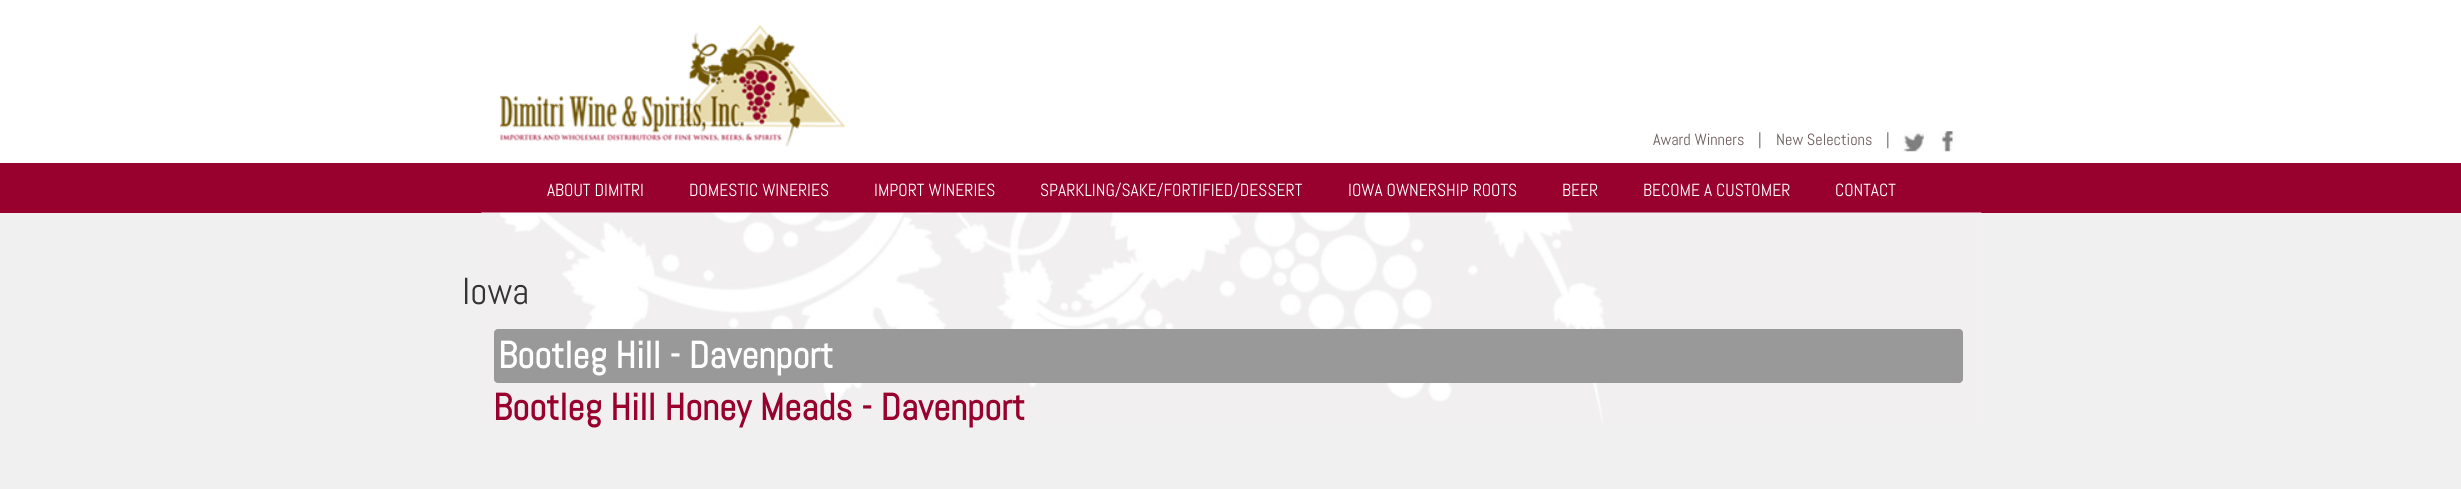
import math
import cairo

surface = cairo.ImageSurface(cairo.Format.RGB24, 2461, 489)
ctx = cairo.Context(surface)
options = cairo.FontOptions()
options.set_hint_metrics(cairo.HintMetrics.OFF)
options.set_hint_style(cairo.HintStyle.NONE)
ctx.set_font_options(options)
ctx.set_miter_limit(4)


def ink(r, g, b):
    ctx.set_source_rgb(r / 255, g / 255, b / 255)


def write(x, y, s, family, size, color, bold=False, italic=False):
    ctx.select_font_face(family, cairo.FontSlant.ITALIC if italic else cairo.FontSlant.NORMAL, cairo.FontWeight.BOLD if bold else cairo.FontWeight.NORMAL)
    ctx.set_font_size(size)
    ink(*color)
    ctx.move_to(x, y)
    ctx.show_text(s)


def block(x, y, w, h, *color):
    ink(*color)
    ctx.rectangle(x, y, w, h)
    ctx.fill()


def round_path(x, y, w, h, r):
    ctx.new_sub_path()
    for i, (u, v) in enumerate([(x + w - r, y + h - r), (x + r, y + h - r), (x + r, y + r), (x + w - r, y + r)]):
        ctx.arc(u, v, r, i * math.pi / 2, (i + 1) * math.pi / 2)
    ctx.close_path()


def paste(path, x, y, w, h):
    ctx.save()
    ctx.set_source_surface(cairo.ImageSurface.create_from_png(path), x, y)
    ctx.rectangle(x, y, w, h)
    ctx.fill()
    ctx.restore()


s1 = dict(family="Abel", size=16.25, color=(107, 92, 92))
s2 = dict(family="Abel", size=17.5, color=(255, 255, 255))
s3 = dict(family="Abel", size=37.5, color=(51, 51, 51))
s4 = dict(family="Abel", size=37.5, color=(255, 255, 255), bold=True)
s5 = dict(family="Abel", size=37.5, color=(152, 1, 46), bold=True)

ink(255, 255, 255)
ctx.paint()
paste("pic1.png", 500, 25, 345, 122)
write(1653, 145, "Award Winners", **s1)
write(1758, 145, "|", **s1)
write(1776, 145, "New Selections", **s1)
write(1886, 145, "|", **s1)
paste("pic2.png", 1903, 131, 21, 21)
paste("pic3.png", 1941, 131, 15, 21)
block(0, 163, 2461, 50, 152, 1, 46)
write(547, 196, "ABOUT DIMITRI", **s2)
write(689, 196, "DOMESTIC WINERIES", **s2)
write(874, 196, "IMPORT WINERIES", **s2)
write(1040, 196, "SPARKLING/SAKE/FORTIFIED/DESSERT", **s2)
write(1348, 196, "IOWA OWNERSHIP ROOTS", **s2)
write(1562, 196, "BEER", **s2)
write(1643, 196, "BECOME A CUSTOMER", **s2)
write(1835, 196, "CONTACT", **s2)
block(0, 213, 2461, 276, 241, 240, 240)
paste("pic4.png", 481, 212, 1501, 211)
write(462, 304, "Iowa", **s3)
ink(153, 153, 153)
round_path(494, 329, 1469, 54, 4)
ctx.fill()
write(498, 368, "Bootleg Hill - Davenport", **s4)
write(493, 420, "Bootleg Hill Honey Meads - Davenport", **s5)
surface.write_to_png("screenshot.png")
